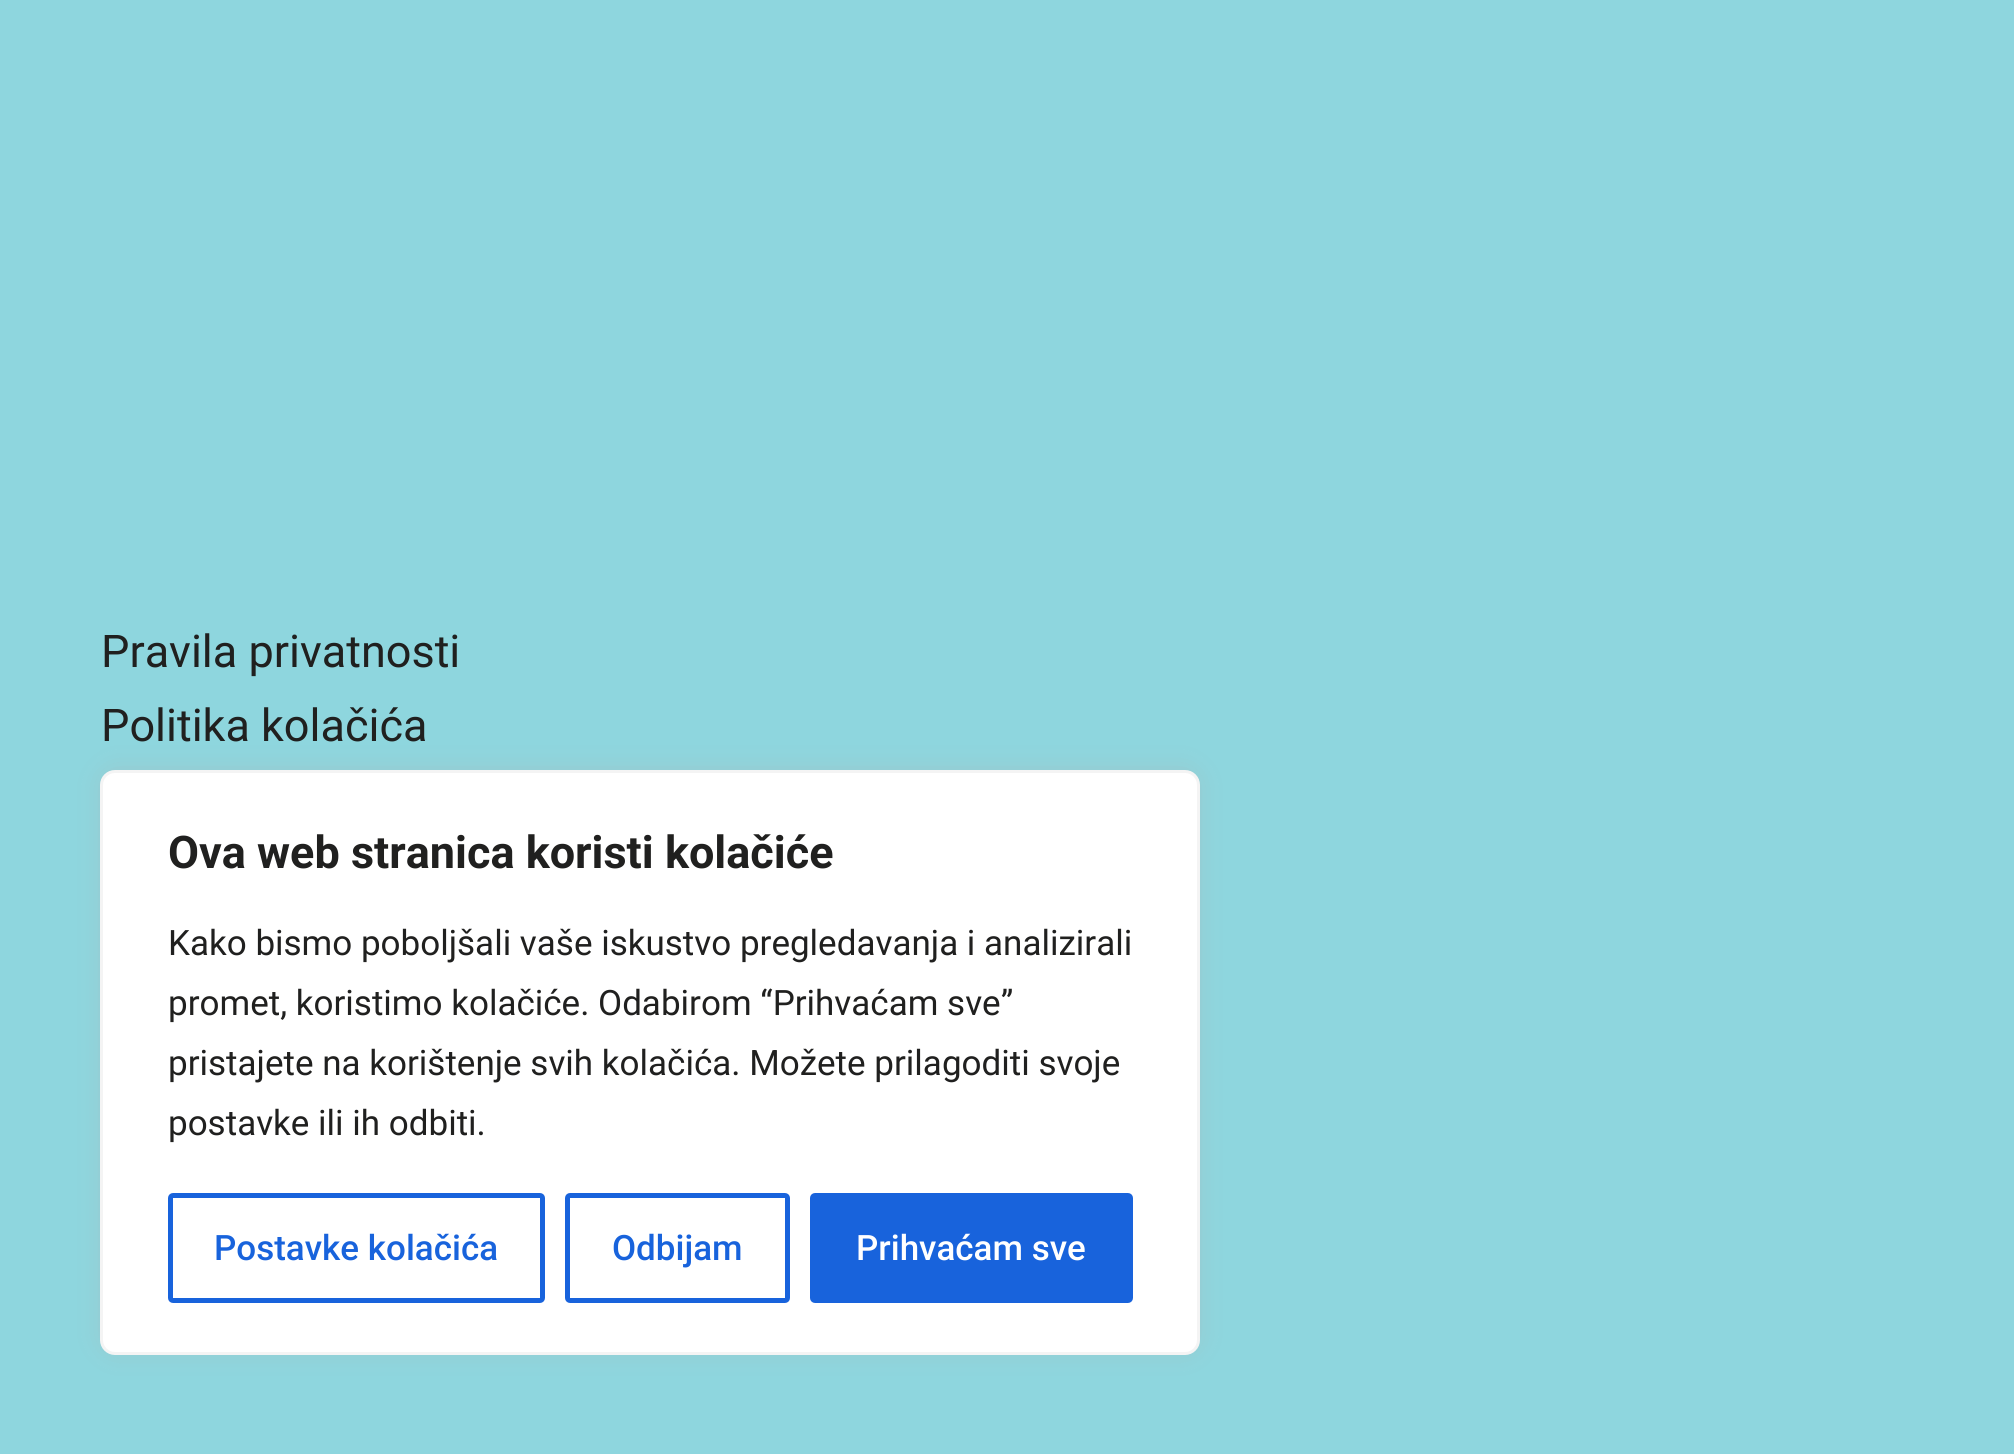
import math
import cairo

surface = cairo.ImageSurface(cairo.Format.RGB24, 2014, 1454)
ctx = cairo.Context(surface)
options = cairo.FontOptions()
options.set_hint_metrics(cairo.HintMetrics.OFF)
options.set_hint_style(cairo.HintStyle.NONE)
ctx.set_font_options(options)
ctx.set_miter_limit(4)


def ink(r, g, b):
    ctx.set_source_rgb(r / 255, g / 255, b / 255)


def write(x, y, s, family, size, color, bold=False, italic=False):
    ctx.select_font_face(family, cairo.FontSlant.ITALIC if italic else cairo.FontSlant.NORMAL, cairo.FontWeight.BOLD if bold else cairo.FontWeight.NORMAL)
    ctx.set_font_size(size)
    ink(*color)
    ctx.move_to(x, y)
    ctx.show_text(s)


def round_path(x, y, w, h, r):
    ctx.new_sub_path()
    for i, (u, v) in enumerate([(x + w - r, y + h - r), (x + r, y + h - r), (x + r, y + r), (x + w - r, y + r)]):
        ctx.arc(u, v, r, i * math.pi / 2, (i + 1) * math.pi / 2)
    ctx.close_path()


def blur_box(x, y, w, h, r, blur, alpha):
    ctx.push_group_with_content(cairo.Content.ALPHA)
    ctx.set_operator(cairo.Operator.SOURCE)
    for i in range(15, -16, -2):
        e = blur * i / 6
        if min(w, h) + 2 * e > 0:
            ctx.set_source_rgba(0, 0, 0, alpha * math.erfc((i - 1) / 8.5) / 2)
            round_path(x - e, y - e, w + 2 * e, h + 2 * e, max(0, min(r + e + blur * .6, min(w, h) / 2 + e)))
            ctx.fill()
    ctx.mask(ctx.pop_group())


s1 = dict(family="Roboto", size=45, color=(32, 32, 31))
s2 = dict(family="Roboto", size=45, color=(32, 32, 31), bold=True)
s3 = dict(family="Roboto", size=35, color=(32, 32, 31))
s4 = dict(family="Roboto Medium", size=35, color=(24, 99, 220))
s5 = dict(family="Roboto Medium", size=35, color=(255, 255, 255))

ink(142, 214, 222)
ctx.paint()
write(101, 667, "Pravila privatnosti", **s1)
write(101, 741, "Politika kolačića", **s1)
ink(172, 171, 171)
blur_box(100, 768, 1100, 585, 15, 12.5, 0.3)
ink(255, 255, 255)
round_path(101.5, 771.5, 1097, 582, 13.5)
ctx.fill_preserve()
ink(244, 244, 244)
ctx.set_line_width(3)
ctx.stroke()
write(168, 868, "Ova web stranica koristi kolačiće", **s2)
write(168, 955, "Kako bismo poboljšali vaše iskustvo pregledavanja i analizirali", **s3)
write(168, 1015, "promet, koristimo kolačiće. Odabirom “Prihvaćam sve”", **s3)
write(168, 1075, "pristajete na korištenje svih kolačića. Možete prilagoditi svoje", **s3)
write(168, 1135, "postavke ili ih odbiti.", **s3)
round_path(170.5, 1195.5, 372, 105, 2.5)
ink(24, 99, 220)
ctx.set_line_width(5)
ctx.stroke()
write(214, 1260, "Postavke kolačića", **s4)
round_path(567.5, 1195.5, 220, 105, 2.5)
ctx.stroke()
write(612, 1260, "Odbijam", **s4)
round_path(812.5, 1195.5, 318, 105, 2.5)
ctx.fill_preserve()
ctx.stroke()
write(856, 1260, "Prihvaćam sve", **s5)
surface.write_to_png("screenshot.png")
